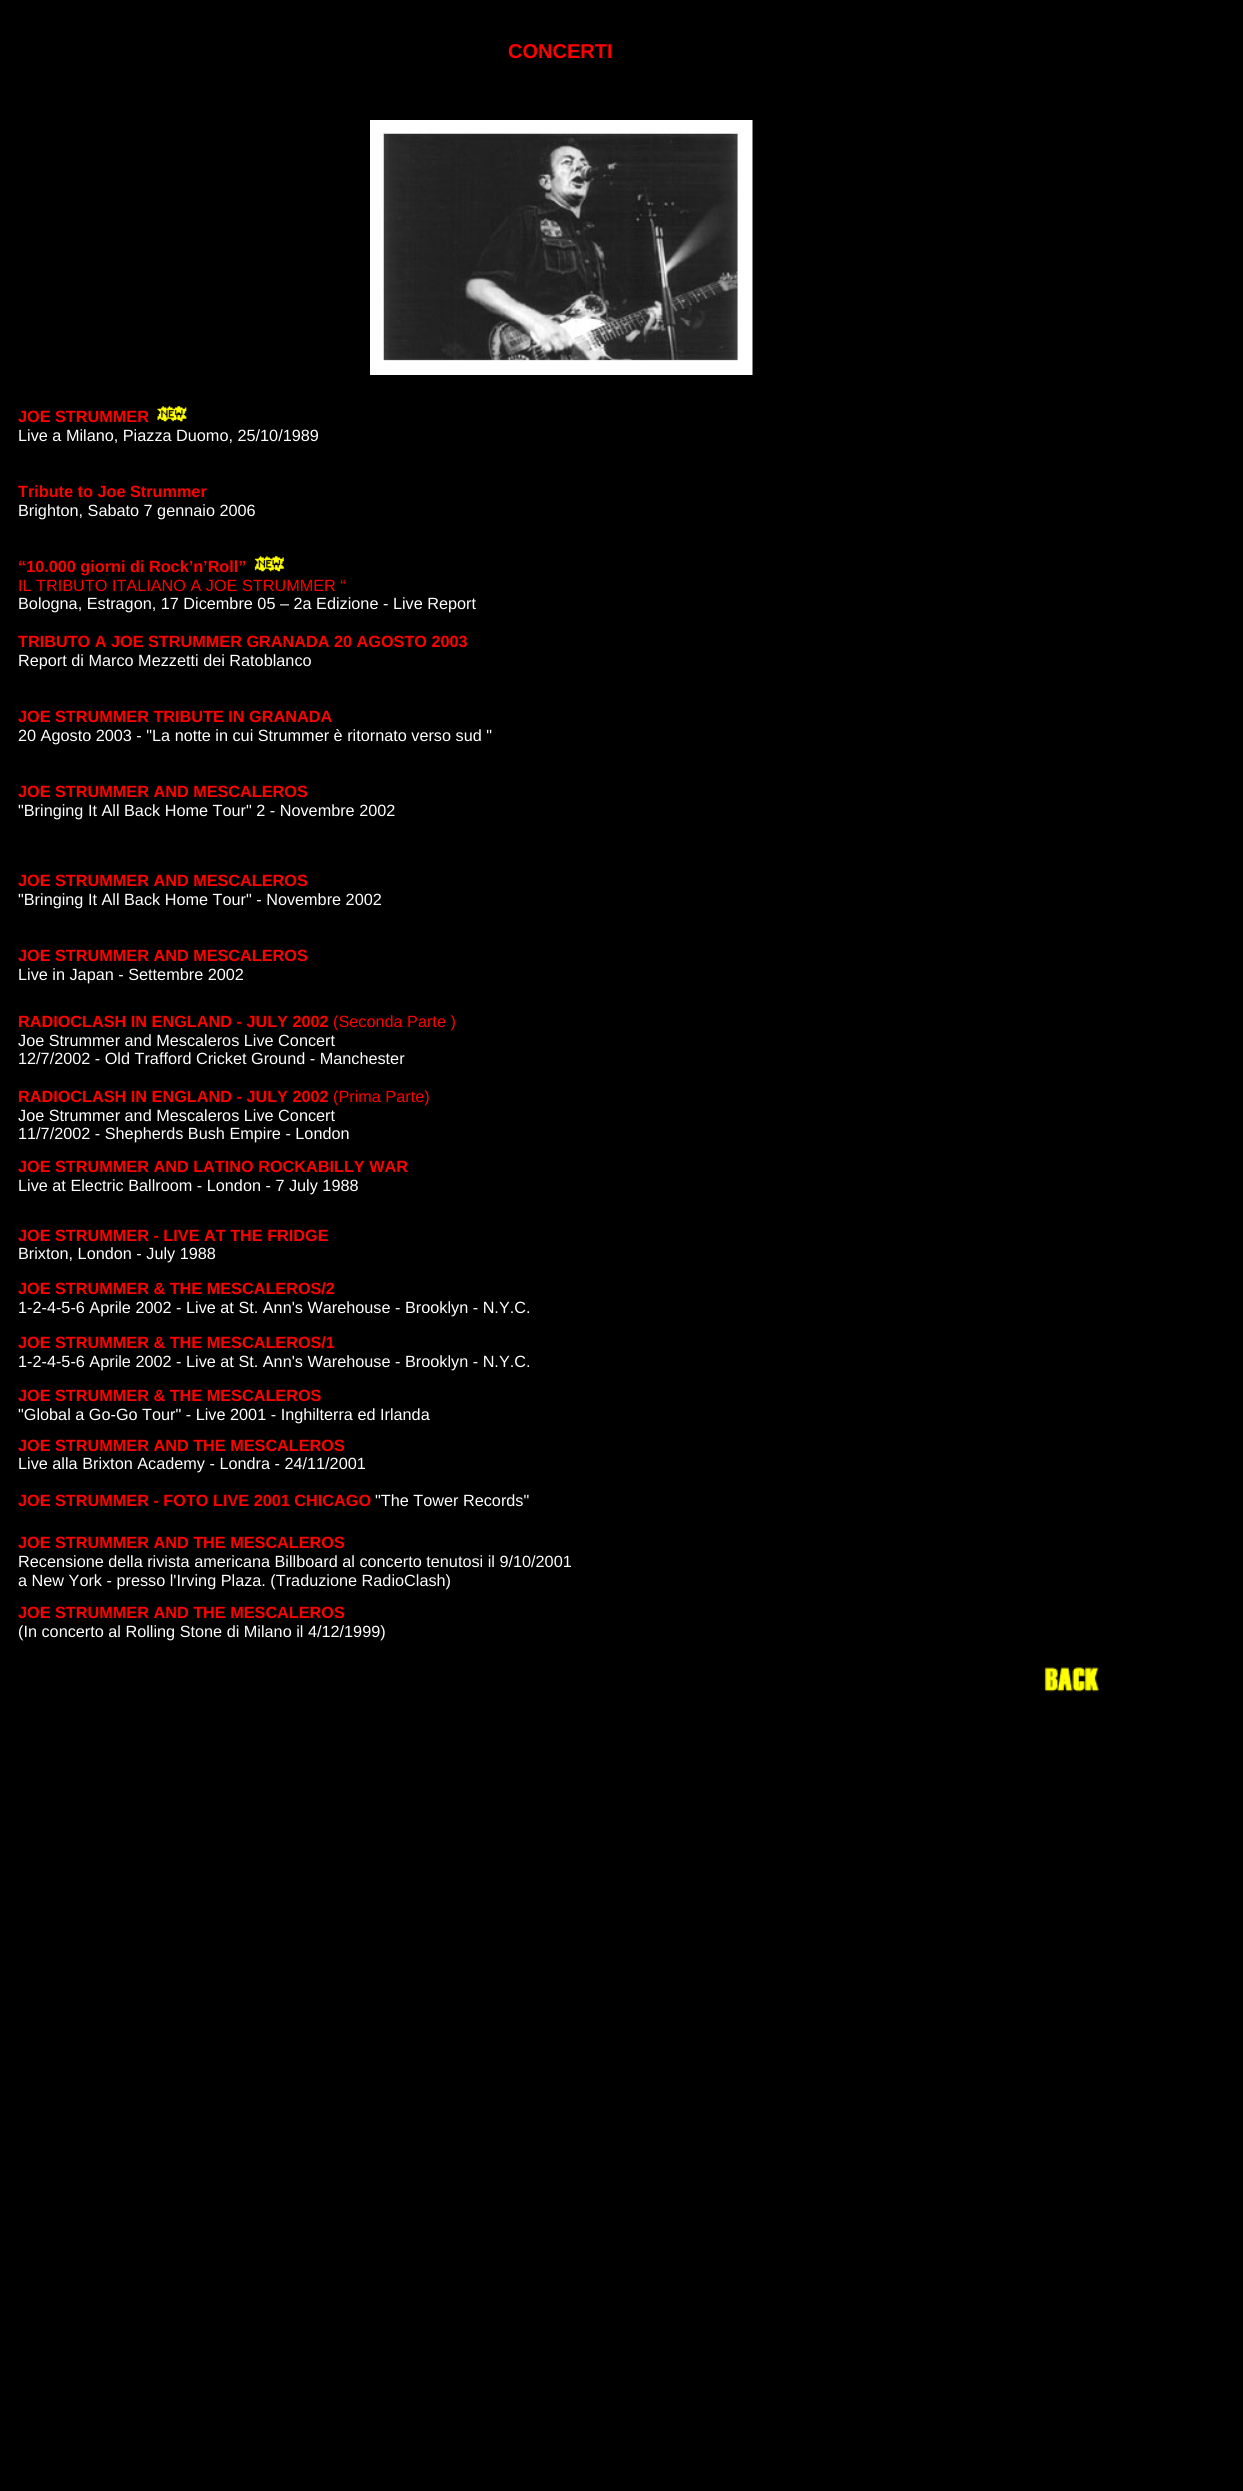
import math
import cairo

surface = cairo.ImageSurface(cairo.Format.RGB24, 1243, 2491)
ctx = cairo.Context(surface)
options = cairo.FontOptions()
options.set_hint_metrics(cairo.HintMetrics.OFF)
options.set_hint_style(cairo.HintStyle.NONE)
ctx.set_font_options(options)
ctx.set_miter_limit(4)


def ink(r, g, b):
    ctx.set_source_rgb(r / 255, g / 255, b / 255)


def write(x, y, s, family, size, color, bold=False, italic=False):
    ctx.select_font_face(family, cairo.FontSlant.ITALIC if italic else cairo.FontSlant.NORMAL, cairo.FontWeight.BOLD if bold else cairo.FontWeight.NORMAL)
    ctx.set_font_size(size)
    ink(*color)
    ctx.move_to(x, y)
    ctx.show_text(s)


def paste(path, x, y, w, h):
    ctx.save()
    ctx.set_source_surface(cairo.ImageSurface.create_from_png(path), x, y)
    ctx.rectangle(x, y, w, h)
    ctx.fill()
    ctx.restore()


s1 = dict(family="Liberation Sans", size=20, color=(255, 0, 0), bold=True)
s2 = dict(family="Liberation Sans", size=16.25, color=(255, 0, 0), bold=True)
s3 = dict(family="Liberation Sans", size=16.25, color=(255, 255, 255))
s4 = dict(family="Liberation Sans", size=16.25, color=(255, 0, 0))

ink(0, 0, 0)
ctx.paint()
write(508, 58, "CONCERTI", **s1)
paste("pic1.png", 370, 120, 383, 255)
write(18, 422, "JOE STRUMMER", **s2)
paste("pic2.png", 157, 406, 30, 16)
write(18, 441, "Live a Milano, Piazza Duomo, 25/10/1989", **s3)
write(18, 497, "Tribute to Joe Strummer", **s2)
write(18, 516, "Brighton, Sabato 7 gennaio 2006", **s3)
write(18, 572, "“10.000 giorni di Rock’n’Roll”", **s2)
paste("pic3.png", 254, 556, 30, 16)
write(18, 591, "IL TRIBUTO ITALIANO A JOE STRUMMER “", **s4)
write(18, 609, "Bologna, Estragon, 17 Dicembre 05 – 2a Edizione - Live Report", **s3)
write(18, 647, "TRIBUTO A JOE STRUMMER GRANADA 20 AGOSTO 2003", **s2)
write(18, 666, "Report di Marco Mezzetti dei Ratoblanco", **s3)
write(18, 722, "JOE STRUMMER TRIBUTE IN GRANADA", **s2)
write(18, 741, "20 Agosto 2003 - \"La notte in cui Strummer è ritornato verso sud \"", **s3)
write(18, 797, "JOE STRUMMER AND MESCALEROS", **s2)
write(18, 816, "\"Bringing It All Back Home Tour\" 2 - Novembre 2002", **s3)
write(18, 886, "JOE STRUMMER AND MESCALEROS", **s2)
write(18, 905, "\"Bringing It All Back Home Tour\" - Novembre 2002", **s3)
write(18, 961, "JOE STRUMMER AND MESCALEROS", **s2)
write(18, 980, "Live in Japan - Settembre 2002", **s3)
write(18, 1027, "RADIOCLASH IN ENGLAND - JULY 2002", **s2)
write(333, 1027, "(Seconda Parte )", **s4)
write(18, 1046, "Joe Strummer and Mescaleros Live Concert", **s3)
write(18, 1064, "12/7/2002 - Old Trafford Cricket Ground - Manchester", **s3)
write(18, 1102, "RADIOCLASH IN ENGLAND - JULY 2002", **s2)
write(333, 1102, "(Prima Parte)", **s4)
write(18, 1121, "Joe Strummer and Mescaleros Live Concert", **s3)
write(18, 1139, "11/7/2002 - Shepherds Bush Empire - London", **s3)
write(18, 1172, "JOE STRUMMER AND LATINO ROCKABILLY WAR", **s2)
write(18, 1191, "Live at Electric Ballroom - London - 7 July 1988", **s3)
write(18, 1241, "JOE STRUMMER - LIVE AT THE FRIDGE", **s2)
write(18, 1259, "Brixton, London - July 1988", **s3)
write(18, 1294, "JOE STRUMMER & THE MESCALEROS/2", **s2)
write(18, 1313, "1-2-4-5-6 Aprile 2002 - Live at St. Ann's Warehouse - Brooklyn - N.Y.C.", **s3)
write(18, 1348, "JOE STRUMMER & THE MESCALEROS/1", **s2)
write(18, 1367, "1-2-4-5-6 Aprile 2002 - Live at St. Ann's Warehouse - Brooklyn - N.Y.C.", **s3)
write(18, 1401, "JOE STRUMMER & THE MESCALEROS", **s2)
write(18, 1420, "\"Global a Go-Go Tour\" - Live 2001 - Inghilterra ed Irlanda", **s3)
write(18, 1451, "JOE STRUMMER AND THE MESCALEROS", **s2)
write(18, 1469, "Live alla Brixton Academy - Londra - 24/11/2001", **s3)
write(18, 1506, "JOE STRUMMER - FOTO LIVE 2001 CHICAGO", **s2)
write(375, 1506, "\"The Tower Records\"", **s3)
write(18, 1548, "JOE STRUMMER AND THE MESCALEROS", **s2)
write(18, 1567, "Recensione della rivista americana Billboard al concerto tenutosi il 9/10/2001", **s3)
write(18, 1586, "a New York - presso l'Irving Plaza. (Traduzione RadioClash)", **s3)
write(18, 1618, "JOE STRUMMER AND THE MESCALEROS", **s2)
write(18, 1637, "(In concerto al Rolling Stone di Milano il 4/12/1999)", **s3)
paste("pic4.png", 1044, 1667, 55, 25)
surface.write_to_png("screenshot.png")
